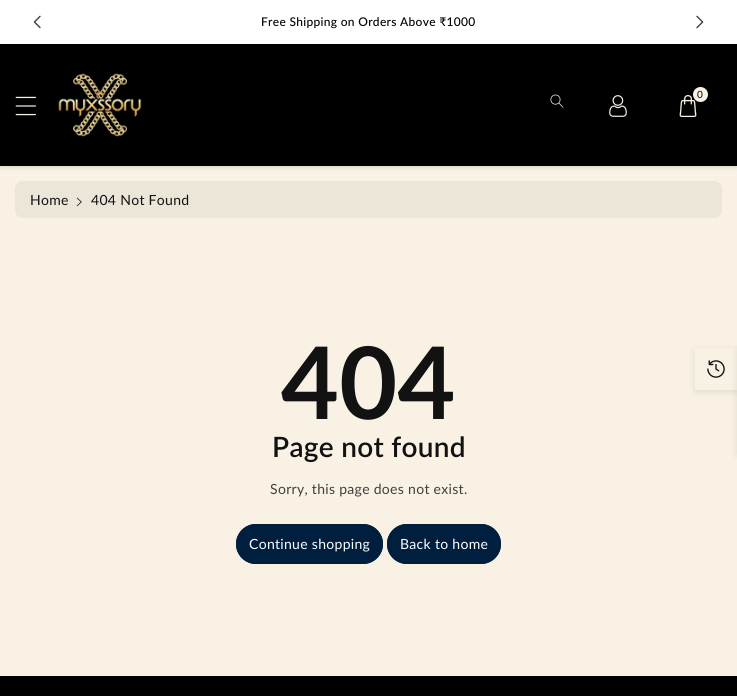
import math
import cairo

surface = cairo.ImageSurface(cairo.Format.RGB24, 737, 696)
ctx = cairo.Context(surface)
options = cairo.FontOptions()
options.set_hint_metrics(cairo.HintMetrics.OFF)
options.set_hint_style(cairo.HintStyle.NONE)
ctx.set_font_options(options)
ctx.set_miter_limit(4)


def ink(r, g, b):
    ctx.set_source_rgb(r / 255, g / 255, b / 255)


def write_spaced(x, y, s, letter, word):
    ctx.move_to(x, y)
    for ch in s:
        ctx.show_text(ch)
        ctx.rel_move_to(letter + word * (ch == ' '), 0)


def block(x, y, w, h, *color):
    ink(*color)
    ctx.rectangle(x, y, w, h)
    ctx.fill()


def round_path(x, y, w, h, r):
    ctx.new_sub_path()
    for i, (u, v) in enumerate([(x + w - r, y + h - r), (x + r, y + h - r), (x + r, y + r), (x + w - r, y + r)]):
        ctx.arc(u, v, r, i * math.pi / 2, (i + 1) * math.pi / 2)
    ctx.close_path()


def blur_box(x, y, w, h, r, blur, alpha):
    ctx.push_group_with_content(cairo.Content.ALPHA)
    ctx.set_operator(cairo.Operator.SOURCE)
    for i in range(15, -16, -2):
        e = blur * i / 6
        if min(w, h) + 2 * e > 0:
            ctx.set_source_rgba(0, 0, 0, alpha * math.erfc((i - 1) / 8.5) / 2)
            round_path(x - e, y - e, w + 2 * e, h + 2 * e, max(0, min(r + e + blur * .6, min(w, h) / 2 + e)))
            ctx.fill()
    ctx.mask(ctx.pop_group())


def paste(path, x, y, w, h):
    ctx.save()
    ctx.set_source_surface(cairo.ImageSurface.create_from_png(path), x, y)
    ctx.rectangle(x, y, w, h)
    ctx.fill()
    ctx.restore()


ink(248, 241, 228)
ctx.paint()
block(0, 0, 737, 44, 255, 255, 255)
paste("pic1.png", 33, 15, 8, 14)
ctx.select_font_face("Lato Medium")
ctx.set_font_size(12)
ink(0, 0, 0)
write_spaced(261, 26, "Free Shipping on Orders Above ₹1000", 0.3, 0)
paste("pic2.png", 696, 15, 8, 14)
ink(18, 18, 18)
blur_box(0, 46, 737, 122, 0, 2, 0.1)
block(0, 44, 737, 122, 0, 0, 0)
paste("pic3.png", 58, 73, 84, 64)
paste("pic4.png", 550, 94, 14, 14)
paste("pic5.png", 609, 95, 18, 22)
paste("pic6.png", 679, 95, 18, 22)
ink(248, 241, 228)
ctx.arc(700.5, 94.5, 7.5, 0, 2 * math.pi)
ctx.fill()
ctx.select_font_face("Lato")
ctx.set_font_size(10)
ink(0, 0, 0)
write_spaced(697, 98, "0", 0.3, 0)
paste("pic7.png", 15, 96, 21, 20)
ink(236, 230, 217)
round_path(15, 181, 707, 37, 8)
ctx.fill()
ctx.set_font_size(14)
ink(18, 18, 18)
write_spaced(30, 205, "Home", 0.3, 0)
paste("pic8.png", 76, 197, 6, 10)
write_spaced(91, 205, "404 Not Found", 0.3, 0)
ctx.save()
ctx.set_fill_rule(cairo.FillRule.EVEN_ODD)
ctx.new_path()
ctx.move_to(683, 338)
ctx.line_to(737, 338)
ctx.line_to(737, 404)
ctx.line_to(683, 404)
ctx.close_path()
ctx.move_to(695, 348)
ctx.line_to(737, 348)
ctx.line_to(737, 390)
ctx.line_to(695, 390)
ctx.close_path()
ctx.clip()
ink(18, 18, 18)
blur_box(695, 350, 42, 42, 0, 3.5, 0.1)
ctx.restore()
paste("pic9.png", 707, 360, 18, 18)
ink(18, 18, 18)
blur_box(737, 350, 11, 105, 0, 3.5, 0.1)
block(0, 676, 737, 20, 0, 0, 0)
ctx.select_font_face("Lato", cairo.FontSlant.NORMAL, cairo.FontWeight.BOLD)
ctx.set_font_size(100)
ink(18, 18, 18)
write_spaced(281, 419, "404", 0.3, 0)
ctx.select_font_face("Lato SemiBold")
ctx.set_font_size(28)
write_spaced(272, 457, "Page not found", 0.3, 0)
ctx.select_font_face("Lato")
ctx.set_font_size(14)
ink(64, 63, 60)
write_spaced(270, 494, "Sorry, this page does not exist.", 0.3, 0)
ink(0, 31, 63)
round_path(236, 524, 147, 40, 20)
ctx.fill()
round_path(236.5, 524.5, 146, 39, 19.5)
ctx.set_line_width(1)
ctx.stroke()
ink(255, 255, 255)
write_spaced(249, 549, "Continue shopping", 0.3, 0)
ink(0, 31, 63)
round_path(387, 524, 114, 40, 20)
ctx.fill()
round_path(387.5, 524.5, 113, 39, 19.5)
ctx.stroke()
ink(255, 255, 255)
write_spaced(400, 549, "Back to home", 0.3, 0)
surface.write_to_png("screenshot.png")
